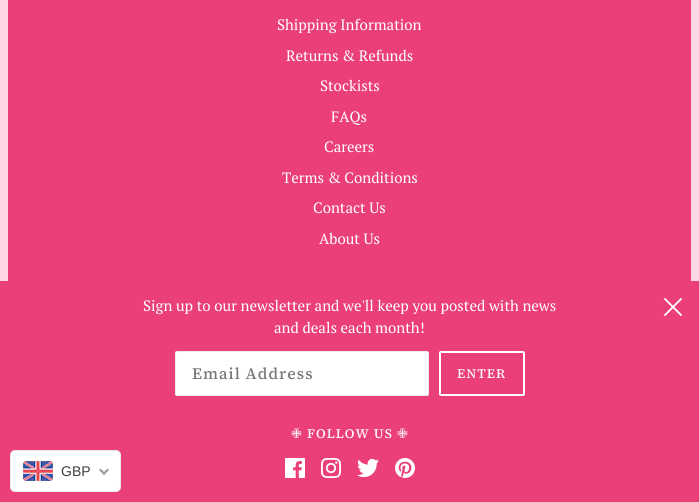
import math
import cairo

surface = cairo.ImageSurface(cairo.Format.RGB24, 699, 502)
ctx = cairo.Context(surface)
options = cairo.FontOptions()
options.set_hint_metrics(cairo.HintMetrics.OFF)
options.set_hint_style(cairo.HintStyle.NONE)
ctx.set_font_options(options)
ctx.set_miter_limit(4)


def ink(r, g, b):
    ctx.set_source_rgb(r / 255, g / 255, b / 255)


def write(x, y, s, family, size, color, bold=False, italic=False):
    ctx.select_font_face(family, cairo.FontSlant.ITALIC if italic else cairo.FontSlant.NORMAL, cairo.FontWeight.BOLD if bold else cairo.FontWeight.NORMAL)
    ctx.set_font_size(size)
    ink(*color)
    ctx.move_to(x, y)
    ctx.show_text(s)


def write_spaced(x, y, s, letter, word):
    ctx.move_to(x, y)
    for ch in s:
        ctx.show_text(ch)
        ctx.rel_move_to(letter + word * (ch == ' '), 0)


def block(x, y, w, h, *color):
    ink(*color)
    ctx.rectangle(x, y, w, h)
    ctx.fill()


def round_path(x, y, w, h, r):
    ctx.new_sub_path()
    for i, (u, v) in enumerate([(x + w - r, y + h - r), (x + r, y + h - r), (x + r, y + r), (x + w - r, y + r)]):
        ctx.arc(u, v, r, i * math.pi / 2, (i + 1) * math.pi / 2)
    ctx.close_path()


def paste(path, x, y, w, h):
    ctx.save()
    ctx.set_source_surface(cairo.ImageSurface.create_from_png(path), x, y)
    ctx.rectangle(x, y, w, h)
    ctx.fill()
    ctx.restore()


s1 = dict(family="PT Serif", size=15, color=(255, 255, 255))
s2 = dict(family="Liberation Sans", size=14, color=(64, 63, 63))

ink(255, 255, 255)
ctx.paint()
ctx.rectangle(4, -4, 691, 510)
ink(255, 214, 228)
ctx.set_line_width(8)
ctx.stroke()
block(8, 0, 683, 281, 234, 63, 120)
write(277, 30, "Shipping Information", **s1)
write(286, 61, "Returns & Refunds", **s1)
write(320, 91, "Stockists", **s1)
write(331, 122, "FAQs", **s1)
write(324, 152, "Careers", **s1)
write(282, 183, "Terms & Conditions", **s1)
write(313, 213, "Contact Us", **s1)
write(319, 244, "About Us", **s1)
block(0, 281, 699, 221, 234, 63, 120)
write(143, 311, "Sign up to our newsletter and we'll keep you posted with news", **s1)
write(274, 333, "and deals each month!", **s1)
round_path(175.5, 351.5, 253, 44, 1.5)
ctx.fill_preserve()
ink(234, 234, 234)
ctx.set_line_width(1)
ctx.stroke()
ctx.select_font_face("Source Serif 4 Medium")
ctx.set_font_size(16)
ink(117, 117, 117)
write_spaced(192, 379, "Email Address", 1, 0)
round_path(440, 352, 84, 43, 1)
ink(255, 255, 255)
ctx.set_line_width(2)
ctx.stroke()
ctx.select_font_face("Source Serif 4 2 Medium")
ctx.set_font_size(13)
write_spaced(457, 378, "ENTER", 1, 0)
paste("pic1.png", 663, 297, 20, 20)
ctx.select_font_face("DejaVu Sans")
write_spaced(291, 438, "✙", 1, 0)
ctx.select_font_face("Source Serif 4 2 Medium")
write_spaced(307, 438, "FOLLOW US", 1, 0)
ctx.select_font_face("DejaVu Sans")
write_spaced(397, 438, "✙", 1, 0)
paste("pic2.png", 285, 458, 20, 20)
paste("pic3.png", 321, 458, 20, 20)
paste("pic4.png", 357, 458, 22, 20)
paste("pic5.png", 395, 458, 20, 20)
round_path(10.5, 450.5, 110, 41, 4.5)
ctx.fill_preserve()
ink(232, 232, 232)
ctx.set_line_width(1)
ctx.stroke()
paste("pic6.png", 23, 461, 30, 20)
write(61, 476, "GBP", **s2)
ink(153, 153, 153)
ctx.new_path()
ctx.move_to(107.5, 468.5)
ctx.line_to(109, 470)
ctx.line_to(104, 475)
ctx.line_to(102.5, 473.5)
ctx.close_path()
ctx.fill()
ctx.new_path()
ctx.move_to(100.5, 468.5)
ctx.line_to(105.5, 473.5)
ctx.line_to(104, 475)
ctx.line_to(99, 470)
ctx.close_path()
ctx.fill()
surface.write_to_png("screenshot.png")
